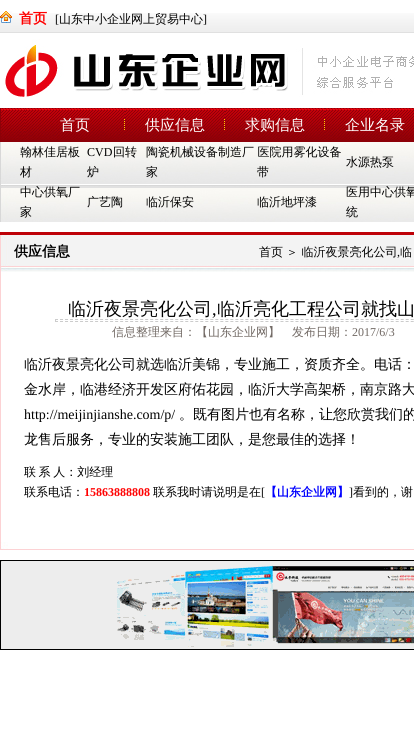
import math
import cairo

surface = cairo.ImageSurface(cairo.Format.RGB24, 414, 732)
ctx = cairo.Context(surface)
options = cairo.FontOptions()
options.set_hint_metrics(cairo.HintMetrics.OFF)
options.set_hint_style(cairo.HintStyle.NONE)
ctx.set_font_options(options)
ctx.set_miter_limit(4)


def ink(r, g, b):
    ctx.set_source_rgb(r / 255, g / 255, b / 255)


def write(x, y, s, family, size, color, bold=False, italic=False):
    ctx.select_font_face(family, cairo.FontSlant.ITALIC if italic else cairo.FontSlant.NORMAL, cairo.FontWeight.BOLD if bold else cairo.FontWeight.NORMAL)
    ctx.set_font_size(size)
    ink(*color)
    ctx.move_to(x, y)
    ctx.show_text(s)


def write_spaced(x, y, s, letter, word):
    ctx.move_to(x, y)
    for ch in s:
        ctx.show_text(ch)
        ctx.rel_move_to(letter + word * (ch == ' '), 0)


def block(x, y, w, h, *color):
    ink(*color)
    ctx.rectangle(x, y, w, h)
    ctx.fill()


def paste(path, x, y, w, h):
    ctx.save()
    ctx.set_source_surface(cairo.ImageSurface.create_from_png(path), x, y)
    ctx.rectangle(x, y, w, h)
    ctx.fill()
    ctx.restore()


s1 = dict(family="WenQuanYi Zen Hei", size=14, color=(255, 0, 0), bold=True)
s2 = dict(family="Liberation Serif", size=12, color=(0, 0, 0))
s3 = dict(family="WenQuanYi Zen Hei Medium", size=12, color=(0, 0, 0))
s4 = dict(family="WenQuanYi Zen Hei Medium", size=15, color=(255, 255, 255))
s5 = dict(family="WenQuanYi Zen Hei", size=14, color=(0, 0, 0), bold=True)
s6 = dict(family="WenQuanYi Zen Hei Medium", size=18, color=(0, 0, 0))
s7 = dict(family="Liberation Serif", size=18, color=(0, 0, 0))
s8 = dict(family="WenQuanYi Zen Hei Medium", size=12, color=(113, 105, 100))
s9 = dict(family="Liberation Serif", size=12, color=(113, 105, 100))
s10 = dict(family="WenQuanYi Zen Hei Medium", size=14, color=(0, 0, 0))
s11 = dict(family="Liberation Serif", size=14, color=(0, 0, 0))
s12 = dict(family="Liberation Serif", size=12, color=(255, 0, 0), bold=True)
s13 = dict(family="WenQuanYi Zen Hei", size=12, color=(0, 0, 255), bold=True)

ink(255, 255, 255)
ctx.paint()
paste("pic1.png", 0, 13, 414, 20)
paste("pic2.png", 0, 11, 12, 12)
write(19, 23, "首页", **s1)
write(55, 23, "[", **s2)
write(59, 23, "山东中小企业网上贸易中心", **s3)
write(203, 23, "]", **s2)
paste("pic3.png", 4, 39, 410, 58)
paste("pic4.png", 0, 108, 414, 34)
paste("pic5.png", 25, 108, 100, 32)
write(60, 130, "首页", **s4)
paste("pic5.png", 125, 108, 100, 32)
write(145, 130, "供应信息", **s4)
paste("pic5.png", 225, 108, 100, 32)
write(245, 130, "求购信息", **s4)
paste("pic6.png", 325, 108, 89, 32)
write(345, 130, "企业名录", **s4)
paste("pic7.png", 0, 142, 414, 80)
write(20, 156, "翰林佳居板", **s3)
write(20, 176, "材", **s3)
write(87, 156, "CVD", **s2)
write(113, 156, "回转", **s3)
write(87, 176, "炉", **s3)
write(146, 156, "陶瓷机械设备制造厂 医院用雾化设备", **s3)
write(146, 176, "家", **s3)
write(346, 166, "水源热泵", **s3)
write(257, 176, "带", **s3)
write(20, 196, "中心供氧厂", **s3)
write(20, 216, "家", **s3)
write(87, 206, "广艺陶", **s3)
write(146, 206, "临沂保安", **s3)
write(257, 206, "临沂地坪漆", **s3)
write(346, 196, "医用中心供氧", **s3)
write(346, 216, "统", **s3)
paste("pic8.png", 0, 232, 414, 44)
write(14, 256, "供应信息", **s5)
write(259, 256, "首页", **s3)
write(286, 256, "＞ 临沂夜景亮化公司", **s3)
write(397, 256, ",", **s2)
write(400, 256, "临", **s3)
block(0, 276, 1, 266, 252, 210, 212)
write(68, 315, "临沂夜景亮化公司", **s6)
write(212, 315, ",", **s7)
write(217, 315, "临沂亮化工程公司就找山", **s6)
ctx.new_path()
ctx.move_to(55, 319.5)
ctx.line_to(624, 319.5)
ink(204, 204, 204)
ctx.set_line_width(1)
ctx.set_dash([3, 2.01])
ctx.stroke()
ctx.new_path()
ctx.move_to(55, 321.5)
ctx.line_to(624, 321.5)
ctx.stroke()
block(55, 319, 1, 3, 204, 204, 204)
write(112, 336, "信息整理来自：【山东企业网】　发布日期：", **s8)
write(352, 336, "2017/6/3", **s9)
write(24, 369, "临沂夜景亮化公司就选临沂美锦，专业施工，资质齐全。电话：", **s10)
write(24, 394, "金水岸，临港经济开发区府佑花园，临沂大学高架桥，南京路大", **s10)
write(24, 419, "http://meijinjianshe.com/p/", **s11)
ctx.select_font_face("WenQuanYi Zen Hei Medium")
write_spaced(179, 419, "。既有图片也有名称，让您欣赏我们的", 0, -1)
write(24, 444, "龙售后服务，专业的安装施工团队，是您最佳的选择！", **s10)
ctx.set_font_size(12)
write_spaced(24, 476, "联 系 人：刘经理", 0, -1)
write(24, 496, "联系电话：", **s3)
write(84, 496, "15863888808", **s12)
write(153, 496, "联系我时请说明是在", **s3)
write(261, 496, "[", **s2)
write(265, 496, "【山东企业网】", **s13)
write(349, 496, "]", **s2)
write(353, 496, "看到的，谢", **s3)
paste("pic9.png", 0, 542, 414, 8)
paste("pic10.png", 0, 560, 414, 90)
surface.write_to_png("screenshot.png")
